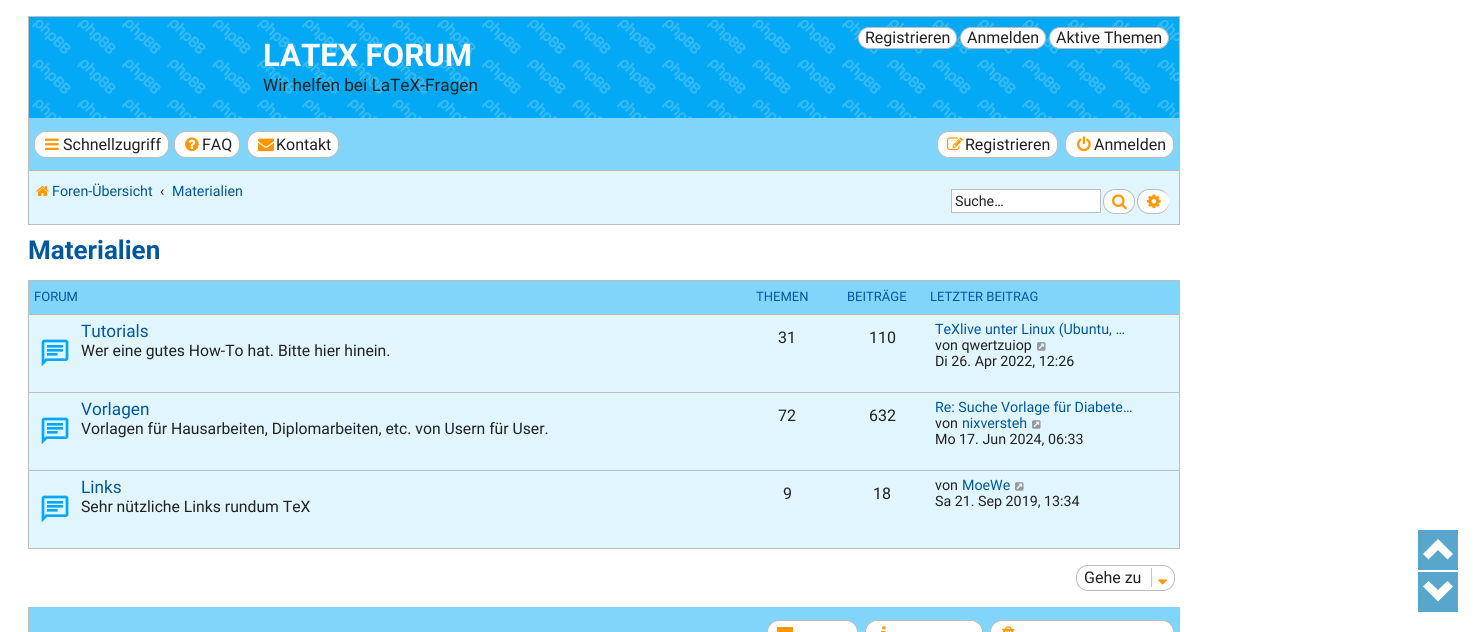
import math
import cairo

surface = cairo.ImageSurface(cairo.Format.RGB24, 1478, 632)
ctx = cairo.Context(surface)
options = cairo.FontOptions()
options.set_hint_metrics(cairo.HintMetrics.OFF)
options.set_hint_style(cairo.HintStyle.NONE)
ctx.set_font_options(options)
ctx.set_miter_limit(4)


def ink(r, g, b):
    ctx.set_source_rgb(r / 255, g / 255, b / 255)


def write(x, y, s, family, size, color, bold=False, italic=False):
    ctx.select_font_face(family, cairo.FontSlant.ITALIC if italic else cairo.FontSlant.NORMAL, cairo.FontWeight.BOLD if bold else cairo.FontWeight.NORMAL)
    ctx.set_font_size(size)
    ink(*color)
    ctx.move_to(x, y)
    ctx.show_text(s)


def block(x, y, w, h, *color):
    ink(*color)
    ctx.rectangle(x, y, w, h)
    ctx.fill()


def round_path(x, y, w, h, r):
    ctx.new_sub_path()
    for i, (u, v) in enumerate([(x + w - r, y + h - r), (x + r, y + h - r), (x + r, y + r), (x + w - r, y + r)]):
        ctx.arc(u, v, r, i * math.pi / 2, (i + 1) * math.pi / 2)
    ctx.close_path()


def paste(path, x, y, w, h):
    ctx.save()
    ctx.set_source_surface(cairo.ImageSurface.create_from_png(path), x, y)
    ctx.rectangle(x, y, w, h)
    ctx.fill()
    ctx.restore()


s1 = dict(family="Roboto", size=16, color=(33, 33, 33))
s2 = dict(family="Roboto", size=31.25, color=(255, 255, 255), bold=True)
s3 = dict(family="Roboto", size=17.2, color=(33, 33, 33))
s4 = dict(family="Roboto", size=14.25, color=(1, 87, 155))
s5 = dict(family="Roboto", size=14.25, color=(33, 33, 33))
s6 = dict(family="Roboto", size=26, color=(1, 87, 155), bold=True)
s7 = dict(family="Roboto", size=13, color=(1, 87, 155))
s8 = dict(family="Roboto", size=17.2, color=(1, 87, 155))
s9 = dict(family="Roboto", size=15.75, color=(33, 33, 33))

ink(255, 255, 255)
ctx.paint()
block(29, 17, 1150, 101, 3, 169, 244)
paste("pic1.png", 32, 19, 1147, 99)
block(28, 16, 1152, 1, 189, 189, 189)
block(1179, 16, 1, 209, 189, 189, 189)
block(28, 16, 1, 102, 189, 189, 189)
ink(255, 255, 255)
round_path(858.5, 27.5, 98, 21, 10.5)
ctx.fill_preserve()
ink(189, 189, 189)
ctx.set_line_width(1)
ctx.stroke()
write(865, 43, "Registrieren", **s1)
ink(255, 255, 255)
round_path(960.5, 27.5, 85, 21, 10.5)
ctx.fill_preserve()
ink(189, 189, 189)
ctx.stroke()
write(967, 43, "Anmelden", **s1)
ink(255, 255, 255)
round_path(1049.5, 27.5, 119, 21, 10.5)
ctx.fill_preserve()
ink(189, 189, 189)
ctx.stroke()
write(1056, 43, "Aktive Themen", **s1)
write(263, 66, "LATEX FORUM", **s2)
write(263, 91, "Wir helfen bei LaTeX-Fragen", **s3)
block(29, 118, 1150, 52, 129, 212, 250)
block(28, 224, 1152, 1, 189, 189, 189)
block(28, 118, 1, 107, 189, 189, 189)
ink(255, 255, 255)
round_path(34.5, 131.5, 134, 26, 11.5)
ctx.fill_preserve()
ink(189, 189, 189)
ctx.stroke()
paste("pic2.png", 45, 138, 14, 12)
write(63, 150, "Schnellzugriff", **s1)
ink(255, 255, 255)
round_path(174.5, 131.5, 65, 26, 11.5)
ctx.fill_preserve()
ink(189, 189, 189)
ctx.stroke()
paste("pic3.png", 185, 137, 14, 15)
write(202, 150, "FAQ", **s1)
ink(255, 255, 255)
round_path(247.5, 131.5, 91, 26, 11.5)
ctx.fill_preserve()
ink(189, 189, 189)
ctx.stroke()
paste("pic4.png", 258, 138, 16, 14)
write(276, 150, "Kontakt", **s1)
ink(255, 255, 255)
round_path(937.5, 131.5, 120, 26, 11.5)
ctx.fill_preserve()
ink(189, 189, 189)
ctx.stroke()
paste("pic5.png", 947, 137, 16, 13)
write(965, 150, "Registrieren", **s1)
ink(255, 255, 255)
round_path(1065.5, 131.5, 108, 26, 11.5)
ctx.fill_preserve()
ink(189, 189, 189)
ctx.stroke()
paste("pic6.png", 1077, 136, 14, 16)
write(1094, 150, "Anmelden", **s1)
block(29, 171, 1150, 53, 225, 245, 254)
block(29, 170, 1150, 1, 189, 189, 189)
paste("pic7.png", 36, 186, 13, 10)
write(52, 196, "Foren-Übersicht", **s4)
write(160, 196, "‹", **s5)
write(172, 196, "Materialien", **s4)
ink(255, 255, 255)
ctx.rectangle(951.5, 189.5, 149, 23)
ctx.fill_preserve()
ink(189, 189, 189)
ctx.stroke()
write(955, 206, "Suche…", **s5)
ink(255, 255, 255)
round_path(1103.5, 189.5, 31, 24, 11.5)
ctx.fill_preserve()
ink(189, 189, 189)
ctx.stroke()
paste("pic8.png", 1112, 194, 15, 16)
ink(255, 255, 255)
ctx.new_path()
ctx.move_to(1149, 190)
ctx.curve_to(1153, 190, 1158, 189.5, 1161.5, 191)
ctx.curve_to(1173.5, 195.5, 1170.5, 212, 1157, 213)
ctx.curve_to(1153.5, 213, 1148, 213.5, 1144.5, 212)
ctx.curve_to(1134, 207.5, 1137, 190, 1149, 190)
ctx.close_path()
ctx.fill()
ink(189, 189, 189)
ctx.set_fill_rule(cairo.FillRule.EVEN_ODD)
ctx.new_path()
ctx.move_to(1149, 189)
ctx.line_to(1157, 189)
ctx.curve_to(1163.5, 189, 1169, 194.5, 1169, 201)
ctx.line_to(1169, 202)
ctx.curve_to(1169, 208.5, 1163.5, 214, 1157, 214)
ctx.line_to(1149, 214)
ctx.curve_to(1142.5, 214, 1137, 208.5, 1137, 202)
ctx.line_to(1137, 201)
ctx.curve_to(1137, 194.5, 1142.5, 189, 1149, 189)
ctx.close_path()
ctx.move_to(1149, 190)
ctx.curve_to(1153, 190, 1158, 189.5, 1161.5, 191)
ctx.curve_to(1173.5, 195.5, 1170.5, 212, 1157, 213)
ctx.curve_to(1153.5, 213, 1148, 213.5, 1144.5, 212)
ctx.curve_to(1134, 207.5, 1137, 190, 1149, 190)
ctx.close_path()
ctx.fill()
paste("pic9.png", 1147, 194, 14, 15)
write(28, 259, "Materialien", **s6)
block(29, 281, 1150, 33, 129, 212, 250)
ctx.rectangle(28.5, 280.5, 1151, 268)
ink(189, 189, 189)
ctx.stroke()
write(34, 301, "FORUM", **s7)
write(756, 301, "THEMEN", **s7)
write(847, 301, "BEITRÄGE", **s7)
write(930, 301, "LETZTER BEITRAG", **s7)
block(29, 315, 1150, 233, 225, 245, 254)
block(29, 314, 1150, 1, 189, 189, 189)
paste("pic10.png", 41, 339, 28, 28)
write(81, 337, "Tutorials", **s8)
write(81, 356, "Wer eine gutes How-To hat. Bitte hier hinein.", **s9)
write(778, 343, "31", **s1)
write(869, 343, "110", **s1)
write(935, 334, "TeXlive unter Linux (Ubuntu, …", **s4)
write(935, 350, "von qwertzuiop", **s5)
paste("pic11.png", 1037, 342, 9, 9)
write(935, 366, "Di 26. Apr 2022, 12:26", **s5)
block(29, 392, 1150, 1, 189, 189, 189)
paste("pic10.png", 41, 417, 28, 28)
write(81, 415, "Vorlagen", **s8)
write(81, 434, "Vorlagen für Hausarbeiten, Diplomarbeiten, etc. von Usern für User.", **s9)
write(778, 421, "72", **s1)
write(869, 421, "632", **s1)
write(935, 412, "Re: Suche Vorlage für Diabete…", **s4)
write(935, 428, "von", **s5)
write(962, 428, "nixversteh", **s4)
paste("pic11.png", 1032, 420, 9, 9)
write(935, 444, "Mo 17. Jun 2024, 06:33", **s5)
block(29, 470, 1150, 1, 189, 189, 189)
paste("pic10.png", 41, 495, 28, 28)
write(81, 493, "Links", **s8)
write(81, 512, "Sehr nützliche Links rundum TeX", **s9)
write(783, 499, "9", **s1)
write(873, 499, "18", **s1)
write(935, 490, "von", **s5)
write(962, 490, "MoeWe", **s4)
paste("pic11.png", 1015, 482, 9, 9)
write(935, 506, "Sa 21. Sep 2019, 13:34", **s5)
round_path(1076.5, 565.5, 98, 25, 11.5)
ink(189, 189, 189)
ctx.stroke()
write(1084, 583, "Gehe zu", **s1)
block(1151, 568, 1, 19, 199, 195, 191)
paste("pic12.png", 1158, 579, 10, 6)
block(29, 607, 1150, 25, 129, 212, 250)
block(1179, 607, 1, 25, 189, 189, 189)
block(28, 607, 1, 25, 189, 189, 189)
ink(255, 255, 255)
round_path(767.5, 620.5, 90, 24, 11.5)
ctx.fill_preserve()
ink(189, 189, 189)
ctx.stroke()
block(777, 627, 16, 5, 255, 152, 0)
ink(255, 255, 255)
round_path(865.5, 620.5, 117, 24, 11.5)
ctx.fill_preserve()
ink(189, 189, 189)
ctx.stroke()
paste("pic13.png", 881, 626, 5, 6)
ink(255, 255, 255)
round_path(990.5, 620.5, 183, 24, 11.5)
ctx.fill_preserve()
ink(189, 189, 189)
ctx.stroke()
paste("pic14.png", 1002, 626, 13, 6)
block(1418, 530, 40, 40, 89, 166, 204)
ink(255, 255, 255)
ctx.set_fill_rule(cairo.FillRule.WINDING)
ctx.new_path()
ctx.move_to(1423, 554)
ctx.line_to(1428.5, 559.5)
ctx.line_to(1438, 550)
ctx.line_to(1447.5, 559.5)
ctx.line_to(1453, 554)
ctx.line_to(1438, 539)
ctx.close_path()
ctx.fill()
block(1418, 572, 40, 40, 89, 166, 204)
ink(255, 255, 255)
ctx.new_path()
ctx.move_to(1453, 586.5)
ctx.line_to(1447.5, 581)
ctx.line_to(1438, 590)
ctx.line_to(1428.5, 581)
ctx.line_to(1423, 586.5)
ctx.line_to(1438, 601.5)
ctx.close_path()
ctx.fill()
surface.write_to_png("screenshot.png")
